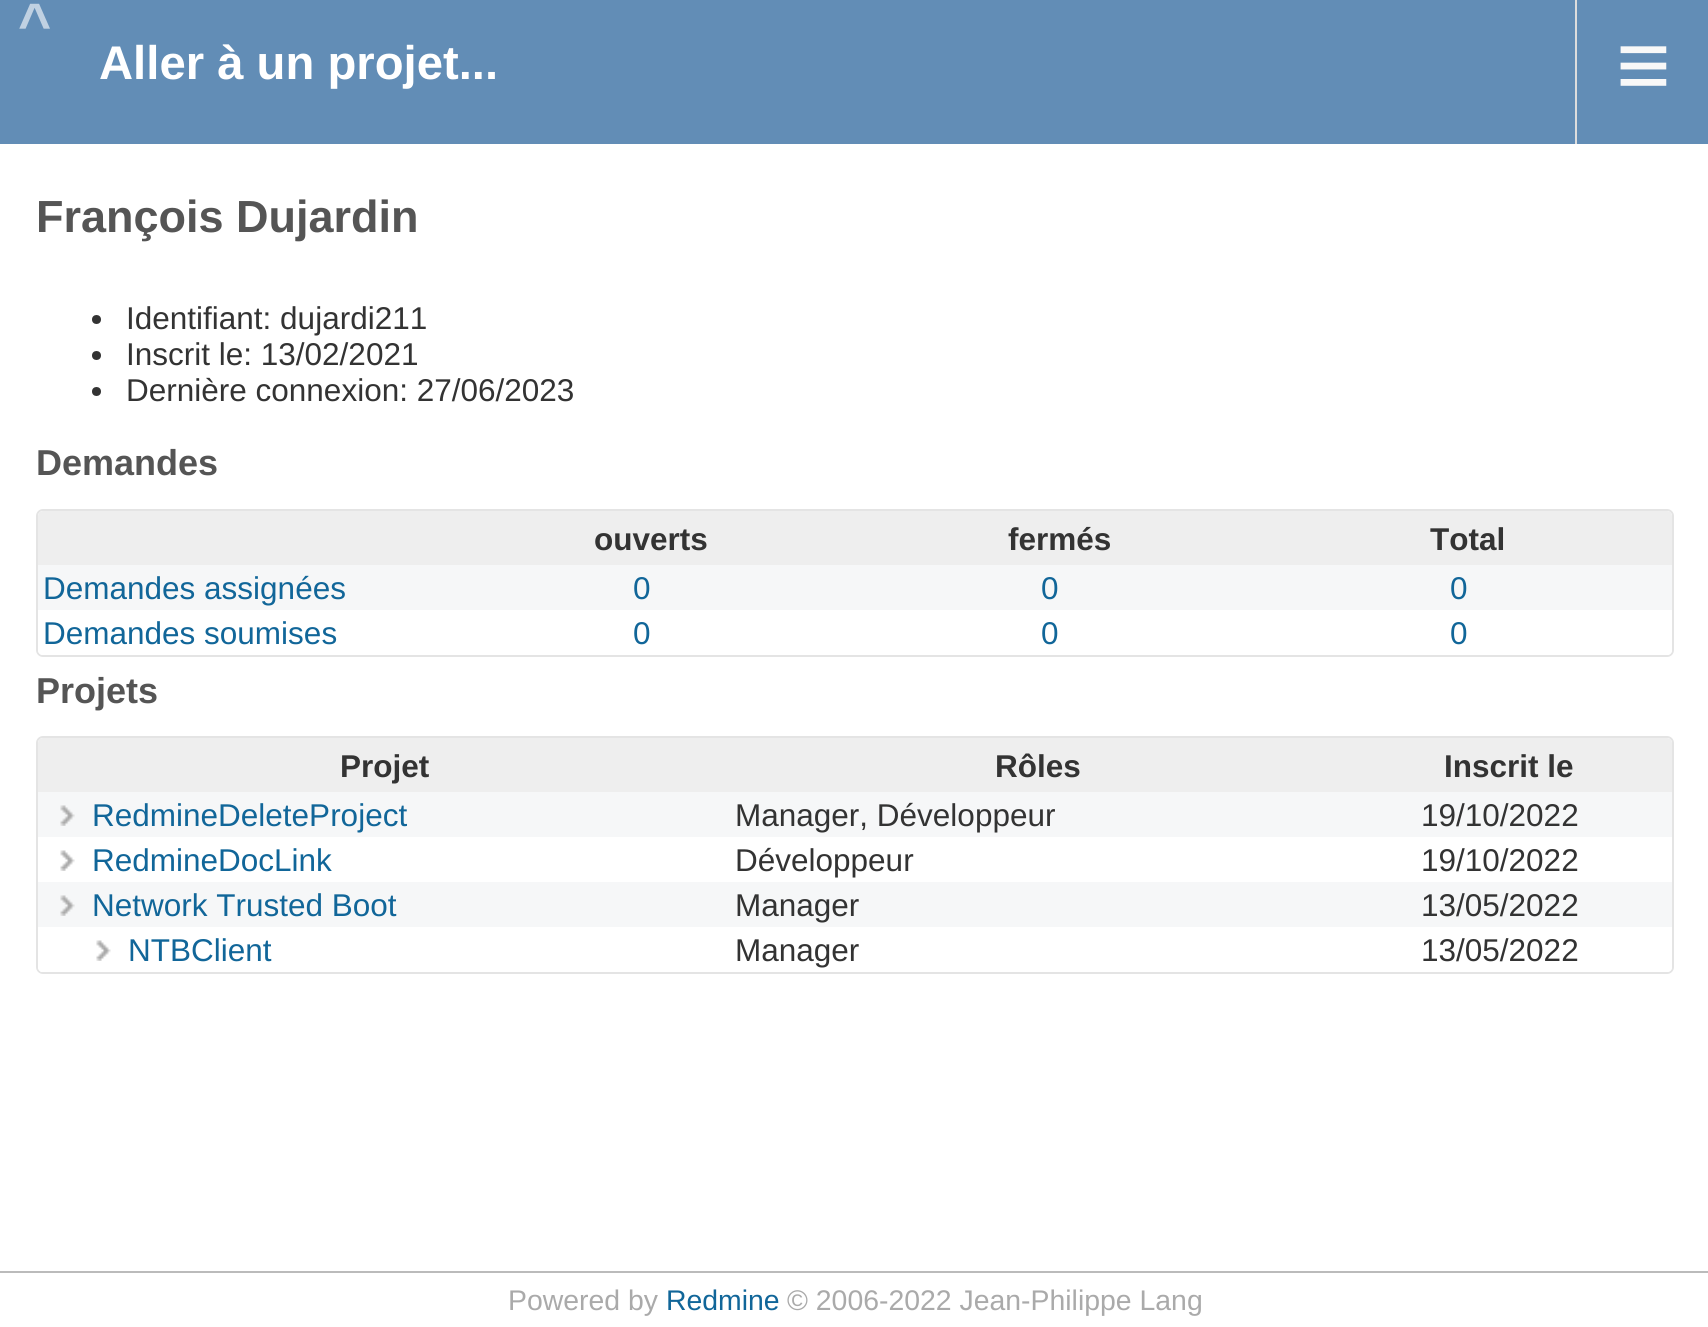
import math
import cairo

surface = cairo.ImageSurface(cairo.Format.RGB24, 1708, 1327)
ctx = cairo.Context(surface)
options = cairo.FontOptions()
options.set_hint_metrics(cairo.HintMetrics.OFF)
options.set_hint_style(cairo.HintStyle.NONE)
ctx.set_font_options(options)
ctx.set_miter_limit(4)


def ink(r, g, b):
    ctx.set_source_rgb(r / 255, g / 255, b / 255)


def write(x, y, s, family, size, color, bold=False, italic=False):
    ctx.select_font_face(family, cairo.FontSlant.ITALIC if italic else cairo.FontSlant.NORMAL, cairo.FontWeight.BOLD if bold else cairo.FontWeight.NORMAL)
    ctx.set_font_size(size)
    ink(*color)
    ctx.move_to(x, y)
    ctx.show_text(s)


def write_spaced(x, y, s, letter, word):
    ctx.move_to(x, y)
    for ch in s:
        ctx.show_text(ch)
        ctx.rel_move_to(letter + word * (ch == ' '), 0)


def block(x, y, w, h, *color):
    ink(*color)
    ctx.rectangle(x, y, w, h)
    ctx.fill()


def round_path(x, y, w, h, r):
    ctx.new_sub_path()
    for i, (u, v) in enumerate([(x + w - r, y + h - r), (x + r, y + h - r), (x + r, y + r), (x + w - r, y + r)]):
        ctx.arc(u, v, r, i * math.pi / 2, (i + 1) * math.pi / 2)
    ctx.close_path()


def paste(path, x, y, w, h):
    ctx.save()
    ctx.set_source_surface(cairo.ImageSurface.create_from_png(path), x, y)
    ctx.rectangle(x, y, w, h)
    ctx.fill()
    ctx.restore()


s1 = dict(family="Liberation Sans", size=47.25, color=(255, 255, 255), bold=True)
s2 = dict(family="Liberation Sans", size=94, color=(248, 248, 248))
s3 = dict(family="Liberation Sans", size=45, color=(85, 85, 85), bold=True)
s4 = dict(family="Liberation Sans", size=31.5, color=(51, 51, 51))
s5 = dict(family="Liberation Sans", size=36, color=(85, 85, 85), bold=True)
s6 = dict(family="Liberation Sans", size=31.5, color=(51, 51, 51), bold=True)
s7 = dict(family="Liberation Sans", size=31.5, color=(17, 102, 153))
s8 = dict(family="Liberation Sans", size=28.4, color=(170, 170, 170))
s9 = dict(family="Liberation Sans", size=28.4, color=(17, 102, 153))

ink(255, 255, 255)
ctx.paint()
block(0, 0, 1708, 144, 98, 141, 182)
ctx.select_font_face("Liberation Sans", cairo.FontSlant.NORMAL, cairo.FontWeight.BOLD)
ctx.set_font_size(57)
ink(192, 209, 226)
write_spaced(18, 43, "^", 8, 0)
write(99, 79, "Aller à un projet...", **s1)
block(1575, 0, 2, 144, 221, 221, 221)
write(1616, 97, "≡", **s2)
write(36, 232, "François Dujardin", **s3)
ink(51, 51, 51)
ctx.new_path()
ctx.arc(96.5, 319.5, 4.5, 0, 2 * math.pi)
ctx.fill()
write(126, 329, "Identifiant: dujardi211", **s4)
ctx.new_path()
ctx.arc(96.5, 355.5, 4.5, 0, 2 * math.pi)
ctx.fill()
write(126, 365, "Inscrit le: 13/02/2021", **s4)
ctx.new_path()
ctx.arc(96.5, 391.5, 4.5, 0, 2 * math.pi)
ctx.fill()
write(126, 401, "Dernière connexion: 27/06/2023", **s4)
write(36, 475, "Demandes", **s5)
round_path(37, 510, 1636, 146, 6)
ink(228, 228, 228)
ctx.stroke()
ink(238, 238, 238)
ctx.new_path()
ctx.move_to(43, 511)
ctx.line_to(448, 511)
ctx.line_to(448, 565)
ctx.line_to(38, 565)
ctx.line_to(38, 516)
ctx.curve_to(38, 513, 40, 511, 43, 511)
ctx.close_path()
ctx.fill()
block(448, 511, 817, 54, 238, 238, 238)
write(594, 550, "ouverts", **s6)
write(1008, 550, "fermés", **s6)
ink(238, 238, 238)
ctx.new_path()
ctx.move_to(1265, 511)
ctx.line_to(1667, 511)
ctx.curve_to(1670, 511, 1672, 513, 1672, 516)
ctx.line_to(1672, 565)
ctx.line_to(1265, 565)
ctx.close_path()
ctx.fill()
write(1430, 550, "Total", **s6)
block(38, 565, 1634, 45, 246, 247, 248)
write(43, 599, "Demandes assignées", **s7)
write(633, 599, "0", **s7)
write(1041, 599, "0", **s7)
write(1450, 599, "0", **s7)
ink(255, 255, 255)
ctx.new_path()
ctx.move_to(38, 610)
ctx.line_to(1672, 610)
ctx.line_to(1672, 650)
ctx.curve_to(1672, 653, 1670, 655, 1667, 655)
ctx.line_to(43, 655)
ctx.curve_to(40, 655, 38, 653, 38, 650)
ctx.close_path()
ctx.fill()
write(43, 644, "Demandes soumises", **s7)
write(633, 644, "0", **s7)
write(1041, 644, "0", **s7)
write(1450, 644, "0", **s7)
write(36, 703, "Projets", **s5)
round_path(37, 737, 1636, 236, 6)
ink(228, 228, 228)
ctx.stroke()
ink(238, 238, 238)
ctx.new_path()
ctx.move_to(43, 738)
ctx.line_to(731, 738)
ctx.line_to(731, 792)
ctx.line_to(38, 792)
ctx.line_to(38, 743)
ctx.curve_to(38, 740, 40, 738, 43, 738)
ctx.close_path()
ctx.fill()
write(340, 777, "Projet", **s6)
block(731, 738, 615, 54, 238, 238, 238)
write(995, 777, "Rôles", **s6)
ink(238, 238, 238)
ctx.new_path()
ctx.move_to(1346, 738)
ctx.line_to(1667, 738)
ctx.curve_to(1670, 738, 1672, 740, 1672, 743)
ctx.line_to(1672, 792)
ctx.line_to(1346, 792)
ctx.close_path()
ctx.fill()
write(1444, 777, "Inscrit le", **s6)
block(38, 792, 1634, 45, 246, 247, 248)
paste("pic1.png", 60, 805, 15, 21)
write(92, 826, "RedmineDeleteProject", **s7)
write(735, 826, "Manager, Développeur", **s4)
write(1421, 826, "19/10/2022", **s4)
paste("pic2.png", 60, 850, 15, 21)
write(92, 871, "RedmineDocLink", **s7)
write(735, 871, "Développeur", **s4)
write(1421, 871, "19/10/2022", **s4)
block(38, 882, 1634, 45, 246, 247, 248)
paste("pic1.png", 60, 895, 15, 21)
write(92, 916, "Network Trusted Boot", **s7)
write(735, 916, "Manager", **s4)
write(1421, 916, "13/05/2022", **s4)
ink(255, 255, 255)
ctx.new_path()
ctx.move_to(38, 927)
ctx.line_to(1672, 927)
ctx.line_to(1672, 967)
ctx.curve_to(1672, 970, 1670, 972, 1667, 972)
ctx.line_to(43, 972)
ctx.curve_to(40, 972, 38, 970, 38, 967)
ctx.close_path()
ctx.fill()
paste("pic3.png", 40, 940, 71, 32)
write(128, 961, "NTBClient", **s7)
write(735, 961, "Manager", **s4)
write(1421, 961, "13/05/2022", **s4)
block(0, 1271, 1708, 2, 187, 187, 187)
write(508, 1310, "Powered by", **s8)
write(666, 1310, "Redmine", **s9)
write(787, 1310, "© 2006-2022 Jean-Philippe Lang", **s8)
surface.write_to_png("screenshot.png")
